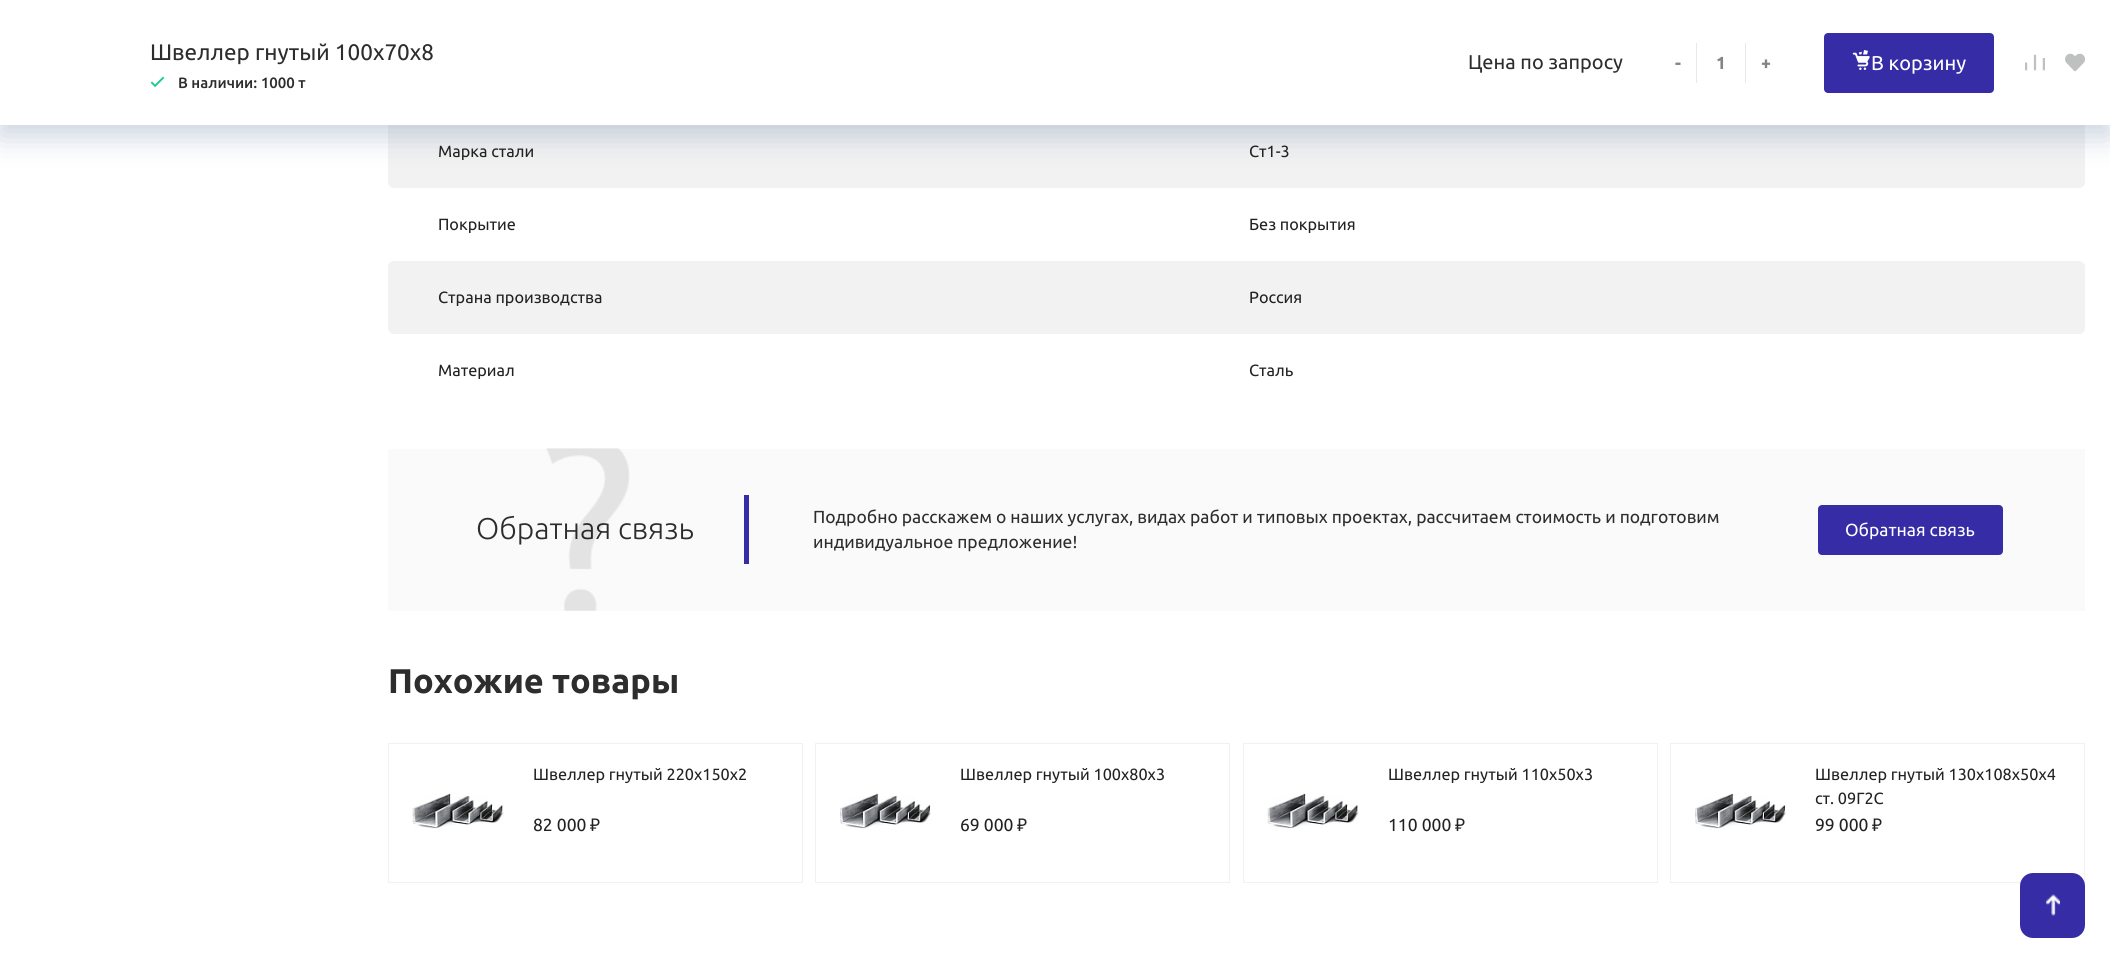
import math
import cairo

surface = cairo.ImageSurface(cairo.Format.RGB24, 2110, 962)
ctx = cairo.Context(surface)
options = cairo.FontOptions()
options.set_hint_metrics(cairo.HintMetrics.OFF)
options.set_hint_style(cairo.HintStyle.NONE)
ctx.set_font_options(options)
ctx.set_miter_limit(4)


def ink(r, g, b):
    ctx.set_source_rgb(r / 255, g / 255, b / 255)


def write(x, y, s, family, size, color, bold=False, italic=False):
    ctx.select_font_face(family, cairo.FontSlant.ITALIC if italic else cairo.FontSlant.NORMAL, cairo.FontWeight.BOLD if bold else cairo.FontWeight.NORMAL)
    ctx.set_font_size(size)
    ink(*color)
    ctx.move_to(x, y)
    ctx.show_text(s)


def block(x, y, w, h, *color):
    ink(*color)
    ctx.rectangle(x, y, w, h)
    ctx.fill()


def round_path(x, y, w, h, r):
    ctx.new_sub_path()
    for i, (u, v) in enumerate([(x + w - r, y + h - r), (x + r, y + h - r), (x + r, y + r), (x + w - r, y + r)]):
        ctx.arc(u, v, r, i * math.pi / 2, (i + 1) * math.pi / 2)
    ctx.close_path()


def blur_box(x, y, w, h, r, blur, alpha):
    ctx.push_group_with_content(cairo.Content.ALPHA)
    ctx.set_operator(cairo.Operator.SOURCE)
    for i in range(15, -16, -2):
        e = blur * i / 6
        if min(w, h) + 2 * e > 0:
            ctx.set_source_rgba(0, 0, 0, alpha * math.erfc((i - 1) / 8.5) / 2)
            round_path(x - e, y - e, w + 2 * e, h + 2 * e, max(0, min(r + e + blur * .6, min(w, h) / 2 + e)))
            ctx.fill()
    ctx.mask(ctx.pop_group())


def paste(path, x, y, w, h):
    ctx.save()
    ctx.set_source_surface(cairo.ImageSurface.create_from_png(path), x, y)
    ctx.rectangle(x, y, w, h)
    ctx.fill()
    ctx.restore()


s1 = dict(family="Ubuntu", size=22.5, color=(45, 45, 45))
s2 = dict(family="Ubuntu Medium", size=15, color=(45, 45, 45))
s3 = dict(family="Ubuntu", size=20, color=(45, 45, 45))
s4 = dict(family="Ubuntu", size=17.5, color=(132, 132, 132), bold=True)
s5 = dict(family="Ubuntu", size=20, color=(255, 255, 255))
s6 = dict(family="Ubuntu", size=16.25, color=(34, 34, 34))
s7 = dict(family="Ubuntu Light", size=30, color=(45, 45, 45))
s8 = dict(family="Ubuntu", size=17.5, color=(45, 45, 45))
s9 = dict(family="Ubuntu", size=17.5, color=(255, 255, 255))
s10 = dict(family="Ubuntu", size=34.25, color=(45, 45, 45), bold=True)
s11 = dict(family="Ubuntu", size=17.5, color=(34, 34, 34))
s12 = dict(family="Noto Sans", size=17.5, color=(34, 34, 34))

ink(255, 255, 255)
ctx.paint()
ink(242, 242, 242)
round_path(388, 114, 1697, 74, 6)
ctx.fill()
ink(103, 130, 165)
blur_box(0, 11, 2110, 125, 0, 15, 0.35)
block(0, 0, 2110, 125, 255, 255, 255)
write(150, 60, "Швеллер гнутый 100х70х8", **s1)
paste("pic1.png", 150, 76, 15, 11)
write(178, 88, "В наличии: 1000 т", **s2)
write(1468, 69, "Цена по запросу", **s3)
write(1675, 69, "-", **s4)
block(1745, 43, 1, 40, 232, 232, 232)
block(1696, 43, 1, 40, 232, 232, 232)
write(1716, 69, "1", **s4)
write(1761, 69, "+", **s4)
ink(53, 44, 166)
round_path(1825.5, 34.5, 167, 57, 2.5)
ctx.fill_preserve()
ctx.set_line_width(3)
ctx.stroke()
paste("pic2.png", 1852, 50, 18, 20)
write(1871, 70, "В корзину", **s5)
paste("pic3.png", 2025, 54, 20, 17)
paste("pic4.png", 2065, 53, 20, 19)
write(438, 157, "Марка стали", **s6)
write(1249, 157, "Ст1-3", **s6)
write(438, 230, "Покрытие", **s6)
write(1249, 230, "Без покрытия", **s6)
ink(242, 242, 242)
round_path(388, 261, 1697, 73, 6)
ctx.fill()
write(438, 303, "Страна производства", **s6)
write(1249, 303, "Россия", **s6)
write(438, 376, "Материал", **s6)
write(1249, 376, "Сталь", **s6)
block(388, 449, 1697, 162, 250, 250, 250)
write(476, 539, "Обратная связь", **s7)
paste("pic5.png", 546, 448, 84, 163)
block(744, 495, 5, 69, 53, 44, 166)
write(813, 523, "Подробно расскажем о наших услугах, видах работ и типовых проектах, рассчитаем стоимость и подготовим", **s8)
write(813, 548, "индивидуальное предложение!", **s8)
ink(53, 44, 166)
round_path(1819.5, 506.5, 182, 47, 2.5)
ctx.fill_preserve()
ctx.stroke()
write(1845, 536, "Обратная связь", **s9)
write(388, 693, "Похожие товары", **s10)
ctx.rectangle(388.5, 743.5, 414, 139)
ink(241, 241, 241)
ctx.set_line_width(1)
ctx.stroke()
paste("pic6.png", 412, 793, 92, 37)
write(533, 780, "Швеллер гнутый 220х150х2", **s6)
write(533, 831, "82 000", **s11)
write(590, 831, "₽", **s12)
ctx.rectangle(815.5, 743.5, 414, 139)
ink(241, 241, 241)
ctx.stroke()
paste("pic7.png", 840, 793, 91, 37)
write(960, 780, "Швеллер гнутый 100х80х3", **s6)
write(960, 831, "69 000", **s11)
write(1017, 831, "₽", **s12)
ctx.rectangle(1243.5, 743.5, 414, 139)
ink(241, 241, 241)
ctx.stroke()
paste("pic8.png", 1267, 793, 92, 37)
write(1388, 780, "Швеллер гнутый 110х50х3", **s6)
write(1388, 831, "110 000", **s11)
write(1455, 831, "₽", **s12)
ctx.rectangle(1670.5, 743.5, 414, 139)
ink(241, 241, 241)
ctx.stroke()
paste("pic9.png", 1695, 793, 91, 37)
write(1815, 780, "Швеллер гнутый 130х108х50х4", **s6)
write(1815, 804, "ст. 09Г2С", **s6)
write(1815, 831, "99 000", **s11)
write(1872, 831, "₽", **s12)
ink(53, 44, 166)
round_path(2020, 873, 65, 65, 13)
ctx.fill()
paste("pic10.png", 2046, 894, 14, 22)
surface.write_to_png("screenshot.png")
